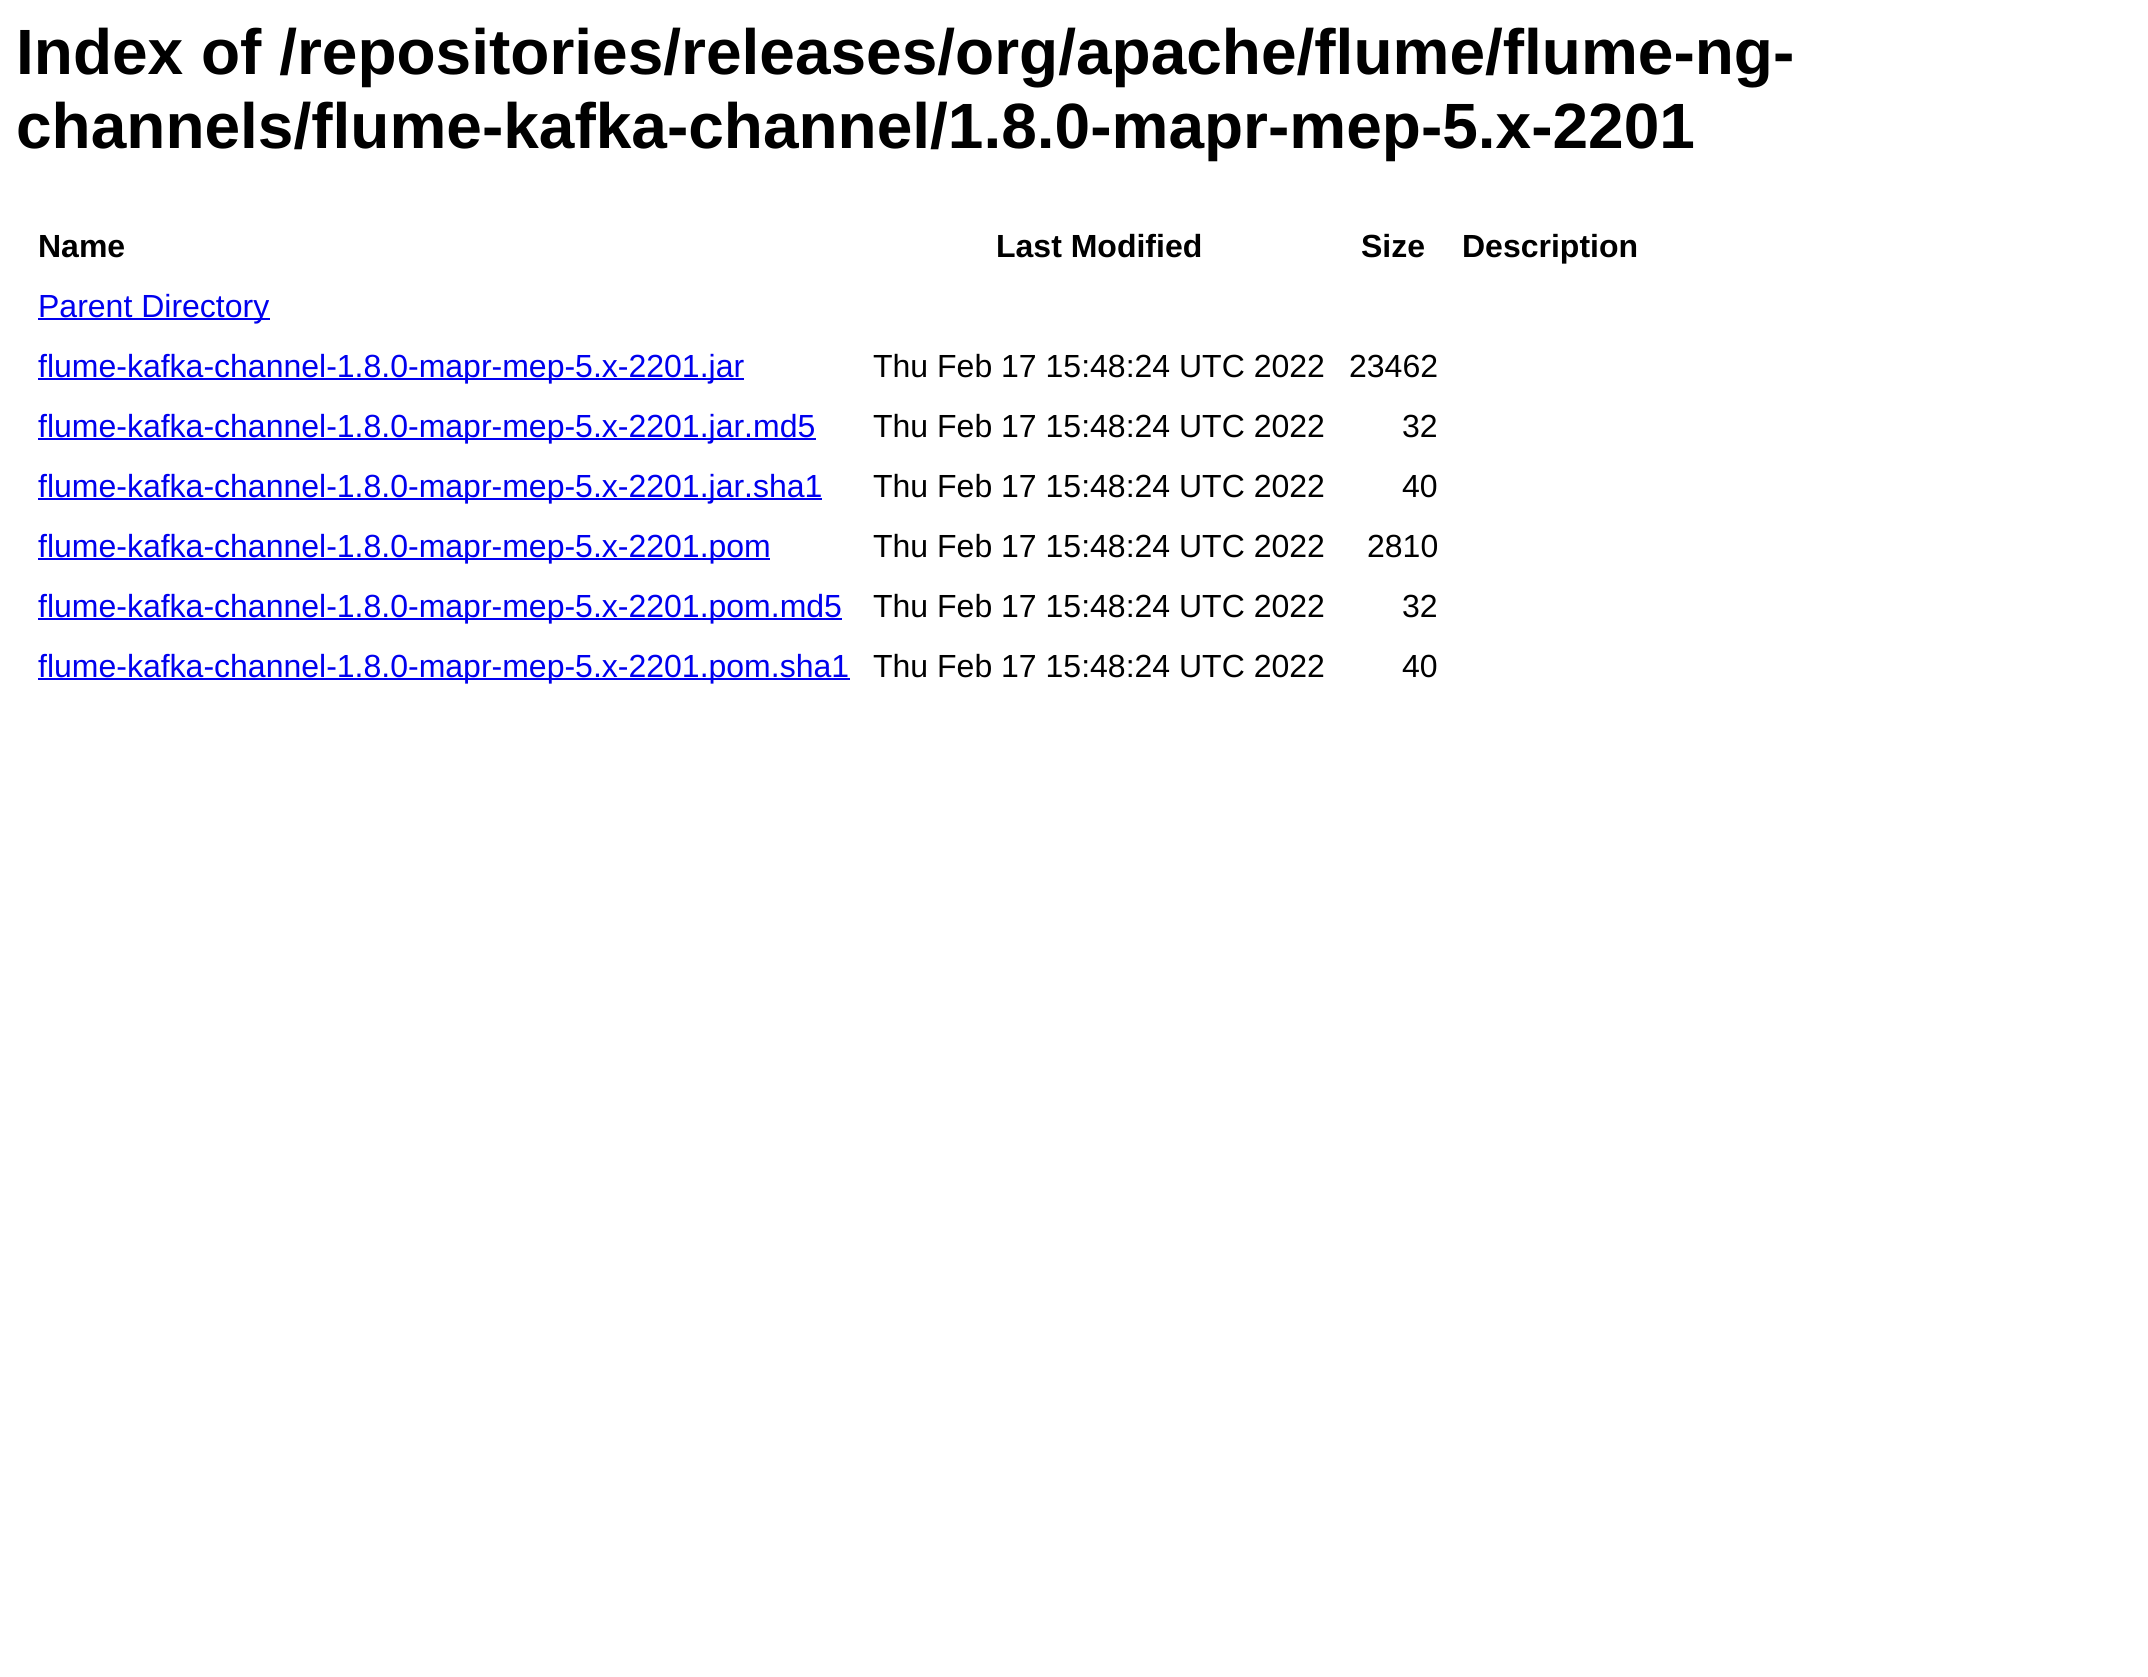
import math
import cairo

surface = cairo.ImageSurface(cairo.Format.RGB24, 2148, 1677)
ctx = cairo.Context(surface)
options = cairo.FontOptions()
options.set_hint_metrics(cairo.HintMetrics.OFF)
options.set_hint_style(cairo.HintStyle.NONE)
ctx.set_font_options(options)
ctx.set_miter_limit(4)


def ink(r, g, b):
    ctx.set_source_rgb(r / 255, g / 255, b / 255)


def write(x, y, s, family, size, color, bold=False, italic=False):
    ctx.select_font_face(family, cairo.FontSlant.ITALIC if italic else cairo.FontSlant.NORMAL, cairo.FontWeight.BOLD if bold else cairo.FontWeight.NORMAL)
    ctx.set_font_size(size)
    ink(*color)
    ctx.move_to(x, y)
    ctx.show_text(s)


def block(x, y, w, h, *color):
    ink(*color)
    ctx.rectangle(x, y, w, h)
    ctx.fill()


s1 = dict(family="Liberation Sans", size=64, color=(0, 0, 0), bold=True)
s2 = dict(family="Liberation Sans", size=32, color=(0, 0, 0), bold=True)
s3 = dict(family="Liberation Sans", size=32, color=(0, 0, 238))
s4 = dict(family="Liberation Sans", size=32, color=(0, 0, 0))

ink(255, 255, 255)
ctx.paint()
write(16, 74, "Index of /repositories/releases/org/apache/flume/flume-ng-", **s1)
write(16, 148, "channels/flume-kafka-channel/1.8.0-mapr-mep-5.x-2201", **s1)
write(38, 257, "Name", **s2)
write(996, 257, "Last Modified", **s2)
write(1361, 257, "Size", **s2)
write(1462, 257, "Description", **s2)
block(38, 318, 232, 2, 0, 0, 238)
write(38, 317, "Parent Directory", **s3)
block(38, 378, 706, 2, 0, 0, 238)
write(38, 377, "flume-kafka-channel-1.8.0-mapr-mep-5.x-2201.jar", **s3)
write(873, 377, "Thu Feb 17 15:48:24 UTC 2022", **s4)
write(1349, 377, "23462", **s4)
block(38, 438, 778, 2, 0, 0, 238)
write(38, 437, "flume-kafka-channel-1.8.0-mapr-mep-5.x-2201.jar.md5", **s3)
write(873, 437, "Thu Feb 17 15:48:24 UTC 2022", **s4)
write(1402, 437, "32", **s4)
block(38, 498, 784, 2, 0, 0, 238)
write(38, 497, "flume-kafka-channel-1.8.0-mapr-mep-5.x-2201.jar.sha1", **s3)
write(873, 497, "Thu Feb 17 15:48:24 UTC 2022", **s4)
write(1402, 497, "40", **s4)
block(38, 558, 732, 2, 0, 0, 238)
write(38, 557, "flume-kafka-channel-1.8.0-mapr-mep-5.x-2201.pom", **s3)
write(873, 557, "Thu Feb 17 15:48:24 UTC 2022", **s4)
write(1367, 557, "2810", **s4)
block(38, 618, 804, 2, 0, 0, 238)
write(38, 617, "flume-kafka-channel-1.8.0-mapr-mep-5.x-2201.pom.md5", **s3)
write(873, 617, "Thu Feb 17 15:48:24 UTC 2022", **s4)
write(1402, 617, "32", **s4)
block(38, 678, 812, 2, 0, 0, 238)
write(38, 677, "flume-kafka-channel-1.8.0-mapr-mep-5.x-2201.pom.sha1", **s3)
write(873, 677, "Thu Feb 17 15:48:24 UTC 2022", **s4)
write(1402, 677, "40", **s4)
surface.write_to_png("screenshot.png")
